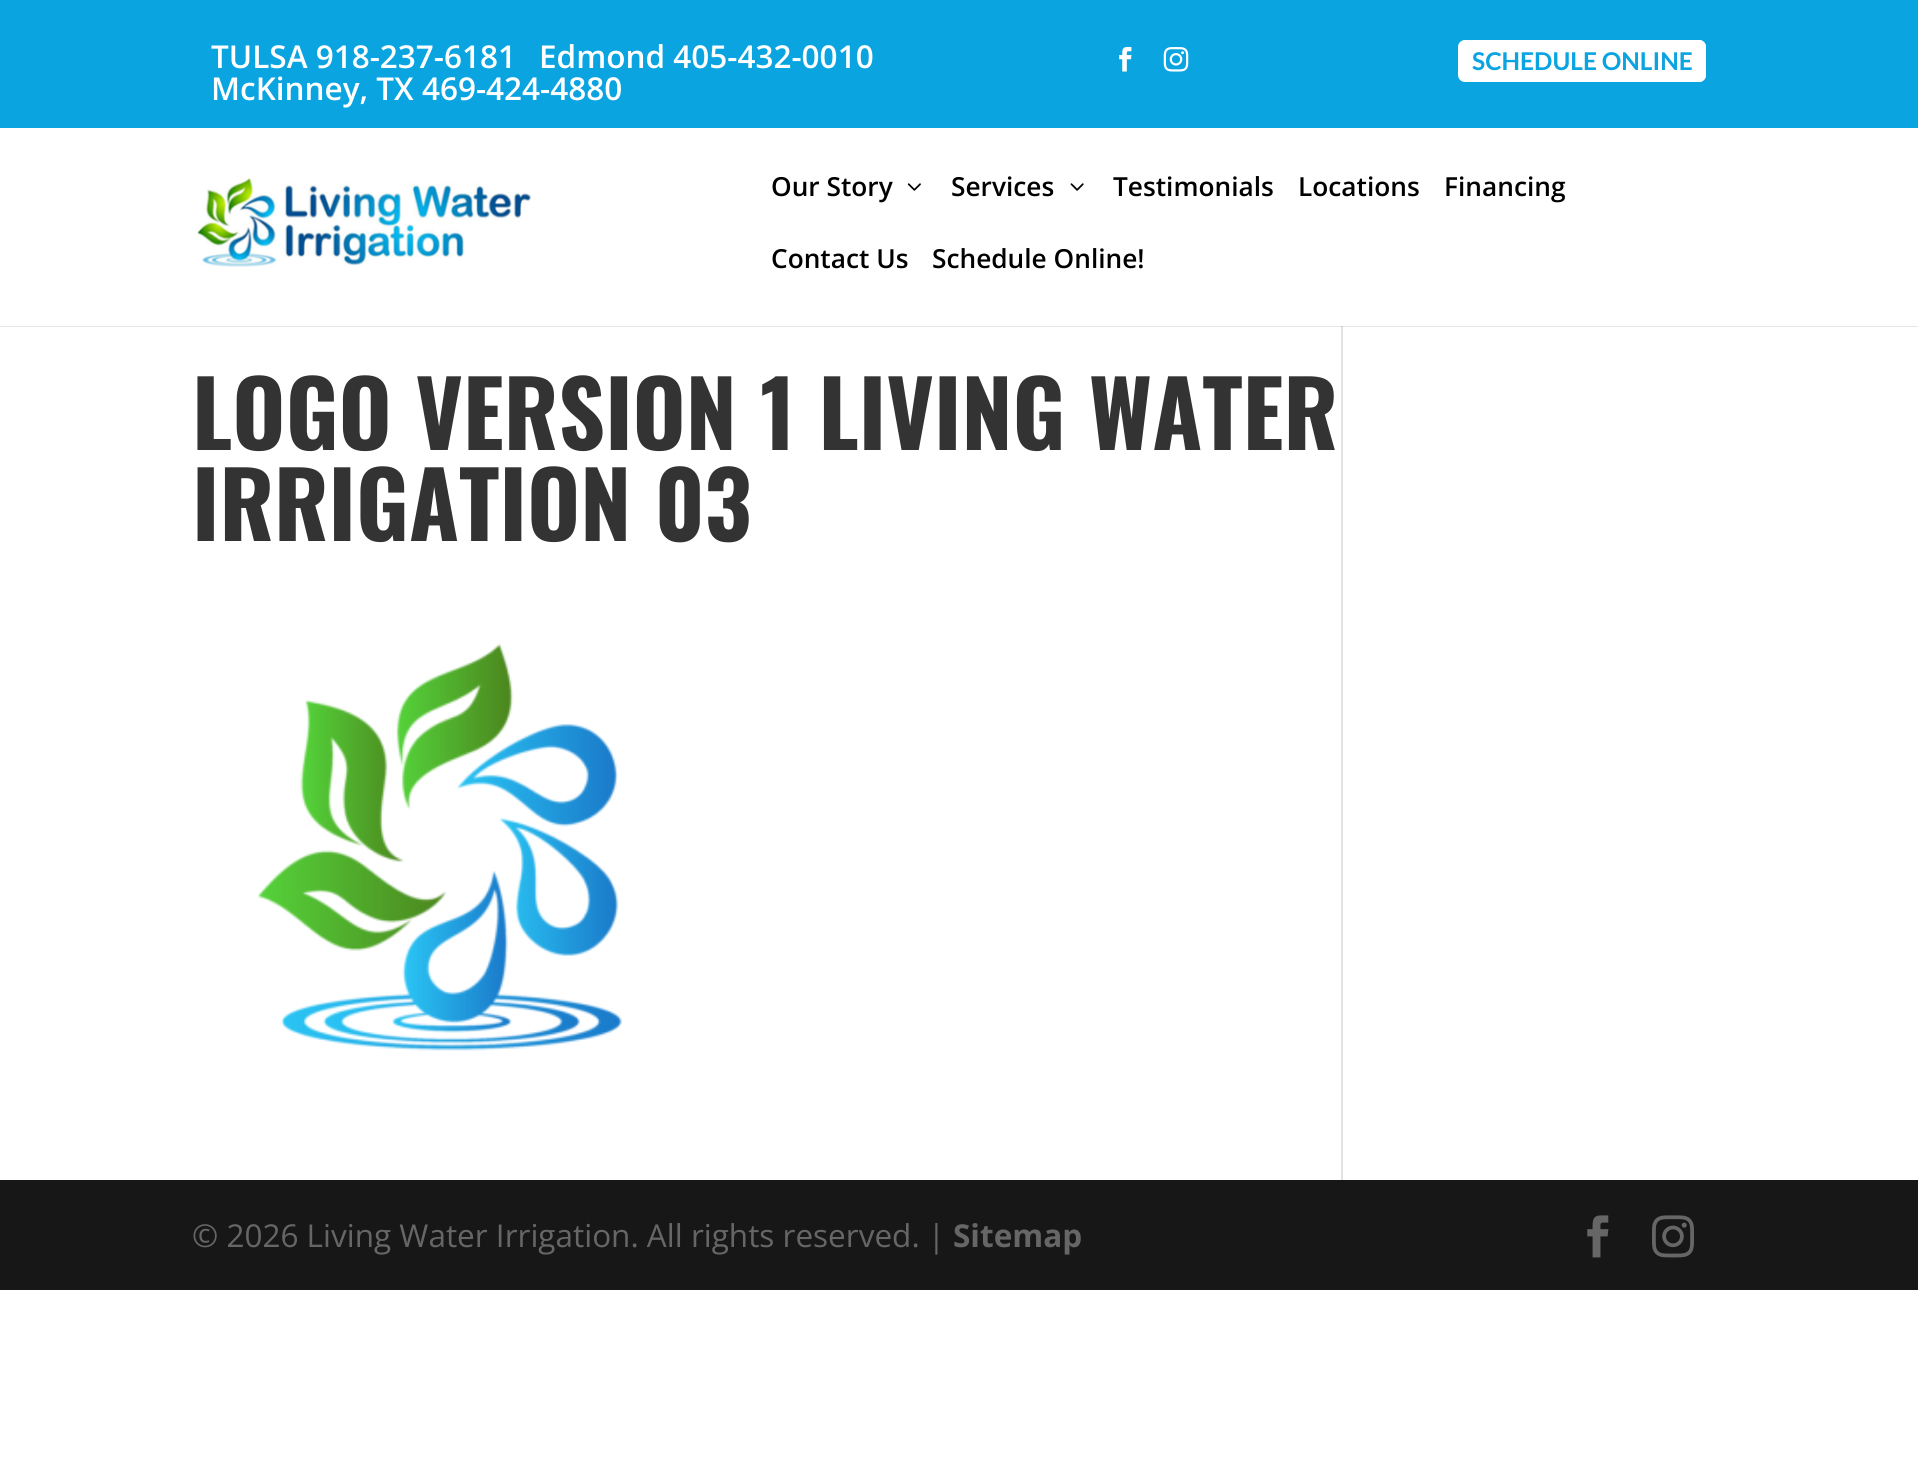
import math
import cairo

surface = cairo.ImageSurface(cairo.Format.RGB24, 1918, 1471)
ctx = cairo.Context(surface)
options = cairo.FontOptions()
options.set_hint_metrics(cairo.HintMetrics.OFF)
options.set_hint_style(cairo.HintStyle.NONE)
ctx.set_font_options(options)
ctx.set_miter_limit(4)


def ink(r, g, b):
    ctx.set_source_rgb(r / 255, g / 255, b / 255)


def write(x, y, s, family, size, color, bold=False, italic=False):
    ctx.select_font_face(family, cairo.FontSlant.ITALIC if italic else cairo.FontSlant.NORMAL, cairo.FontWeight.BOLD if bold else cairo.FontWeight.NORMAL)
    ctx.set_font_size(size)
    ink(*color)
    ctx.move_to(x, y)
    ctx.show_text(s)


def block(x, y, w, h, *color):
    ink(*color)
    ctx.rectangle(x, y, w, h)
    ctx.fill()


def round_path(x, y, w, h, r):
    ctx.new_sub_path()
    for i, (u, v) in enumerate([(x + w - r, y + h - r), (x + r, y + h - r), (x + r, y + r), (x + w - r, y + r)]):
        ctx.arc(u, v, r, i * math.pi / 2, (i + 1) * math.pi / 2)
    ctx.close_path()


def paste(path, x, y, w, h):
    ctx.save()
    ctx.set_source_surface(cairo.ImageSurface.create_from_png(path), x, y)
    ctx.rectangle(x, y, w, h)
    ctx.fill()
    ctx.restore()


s1 = dict(family="Open Sans SemiBold", size=31.5, color=(255, 255, 255))
s2 = dict(family="Lato", size=24.5, color=(10, 164, 225), bold=True)
s3 = dict(family="Open Sans SemiBold", size=26.25, color=(0, 0, 0))
s4 = dict(family="Oswald", size=91, color=(51, 51, 51), bold=True)
s5 = dict(family="Open Sans", size=31.5, color=(102, 102, 102))
s6 = dict(family="Open Sans", size=31.5, color=(102, 102, 102), bold=True)

ink(255, 255, 255)
ctx.paint()
block(0, 326, 1918, 1, 230, 230, 230)
block(0, 0, 1918, 128, 10, 164, 225)
write(211, 68, "TULSA 918-237-6181", **s1)
write(539, 68, "Edmond 405-432-0010", **s1)
write(211, 100, "McKinney, TX 469-424-4880", **s1)
paste("pic1.png", 1119, 47, 13, 25)
paste("pic2.png", 1163, 47, 26, 25)
round_path(1527, 41, 178, 40, 6)
ctx.stroke()
round_path(1459, 41, 246, 40, 6)
ctx.fill_preserve()
ctx.stroke()
write(1472, 70, "SCHEDULE ONLINE", **s2)
paste("pic3.png", 197, 178, 334, 89)
write(771, 196, "Our Story", **s3)
paste("pic4.png", 907, 183, 14, 8)
write(951, 196, "Services", **s3)
paste("pic5.png", 1070, 183, 14, 8)
write(1113, 196, "Testimonials", **s3)
write(1298, 196, "Locations", **s3)
write(1444, 196, "Financing", **s3)
write(771, 268, "Contact Us", **s3)
write(932, 268, "Schedule Online!", **s3)
write(192, 450, "LOGO VERSION 1 LIVING WATER", **s4)
write(192, 541, "IRRIGATION 03", **s4)
paste("pic6.png", 257, 643, 365, 408)
block(1341, 327, 2, 853, 226, 226, 226)
block(1341, 326, 2, 1, 203, 203, 203)
block(0, 1180, 1918, 110, 23, 23, 23)
write(192, 1247, "© 2026 Living Water Irrigation. All rights reserved. |", **s5)
write(953, 1247, "Sitemap", **s6)
paste("pic7.png", 1587, 1215, 22, 43)
paste("pic8.png", 1652, 1215, 42, 43)
surface.write_to_png("screenshot.png")
